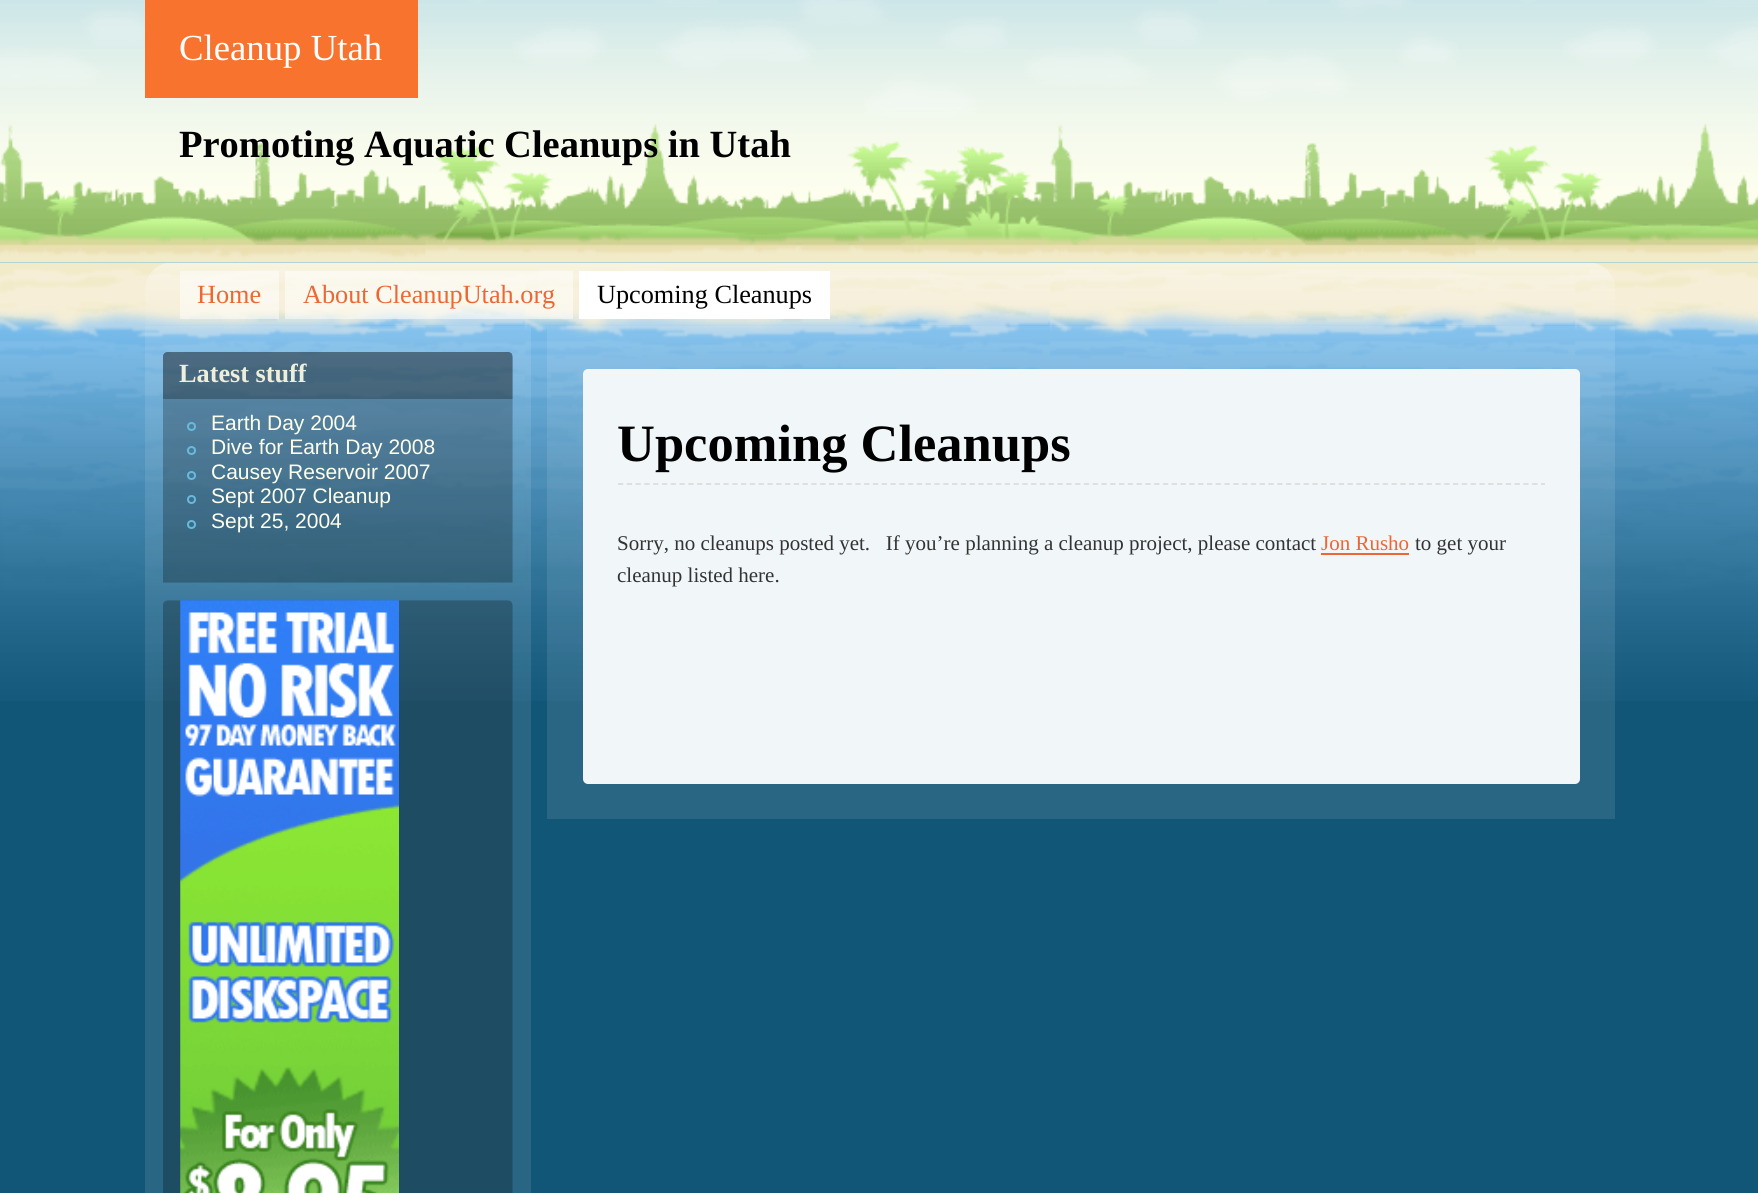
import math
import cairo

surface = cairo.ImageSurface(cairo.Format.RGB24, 1758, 1193)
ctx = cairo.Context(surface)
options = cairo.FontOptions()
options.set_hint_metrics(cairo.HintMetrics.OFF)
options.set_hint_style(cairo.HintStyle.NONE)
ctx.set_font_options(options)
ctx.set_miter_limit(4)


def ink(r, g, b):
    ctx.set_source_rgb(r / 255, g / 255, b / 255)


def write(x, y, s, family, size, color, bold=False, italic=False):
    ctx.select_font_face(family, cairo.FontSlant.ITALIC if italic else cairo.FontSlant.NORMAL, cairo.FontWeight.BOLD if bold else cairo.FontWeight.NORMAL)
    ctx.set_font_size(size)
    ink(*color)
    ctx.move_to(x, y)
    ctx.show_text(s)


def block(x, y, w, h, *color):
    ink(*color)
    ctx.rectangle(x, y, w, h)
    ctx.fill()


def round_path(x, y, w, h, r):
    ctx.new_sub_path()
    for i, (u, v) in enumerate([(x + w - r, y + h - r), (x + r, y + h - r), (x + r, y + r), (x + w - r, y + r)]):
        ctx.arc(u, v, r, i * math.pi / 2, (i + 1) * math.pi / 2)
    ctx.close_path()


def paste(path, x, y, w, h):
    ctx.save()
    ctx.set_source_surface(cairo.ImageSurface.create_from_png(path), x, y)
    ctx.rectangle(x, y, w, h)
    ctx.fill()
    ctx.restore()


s1 = dict(family="Liberation Serif", size=36.75, color=(255, 255, 255))
s2 = dict(family="Liberation Serif", size=38.5, color=(0, 0, 0), bold=True)
s3 = dict(family="Liberation Serif", size=26.25, color=(238, 102, 51))
s4 = dict(family="Liberation Serif", size=26.25, color=(0, 0, 0))
s5 = dict(family="Liberation Serif", size=26.25, color=(238, 238, 221), bold=True)
s6 = dict(family="Liberation Sans", size=21, color=(255, 255, 238))
s7 = dict(family="Liberation Serif", size=52.5, color=(0, 0, 0), bold=True)
s8 = dict(family="Liberation Serif", size=21, color=(51, 51, 51))
s9 = dict(family="Liberation Serif", size=21, color=(238, 102, 51))

ink(17, 85, 119)
ctx.paint()
block(0, 262, 1758, 1, 119, 187, 221)
paste("pic1.png", 0, 0, 1758, 263)
block(145, 0, 273, 98, 247, 115, 46)
write(179, 60, "Cleanup Utah", **s1)
write(179, 157, "Promoting Aquatic Cleanups in Utah", **s2)
paste("pic2.png", 0, 263, 1758, 438)
paste("pic3.png", 145, 263, 1470, 62)
ctx.set_source_rgba(1, 1, 1, 0.5)
ctx.rectangle(180, 271, 99, 48)
ctx.fill()
write(197, 303, "Home", **s3)
ctx.set_source_rgba(1, 1, 1, 0.5)
ctx.rectangle(285, 271, 288, 48)
ctx.fill()
write(303, 303, "About CleanupUtah.org", **s3)
block(579, 271, 251, 48, 255, 255, 255)
write(597, 303, "Upcoming Cleanups", **s4)
ctx.set_source_rgba(1, 1, 1, 0.1)
ctx.rectangle(145, 326, 386, 867)
ctx.fill()
paste("pic4.png", 163, 352, 350, 231)
paste("pic5.png", 163, 352, 350, 47)
write(179, 382, "Latest stuff", **s5)
ctx.new_path()
ctx.arc(191.5, 426.5, 3.5, 0, 2 * math.pi)
ink(102, 187, 221)
ctx.stroke()
write(211, 430, "Earth Day 2004", **s6)
ctx.new_path()
ctx.arc(191.5, 450.5, 3.5, 0, 2 * math.pi)
ink(102, 187, 221)
ctx.stroke()
write(211, 454, "Dive for Earth Day 2008", **s6)
ctx.new_path()
ctx.arc(191.5, 475.5, 3.5, 0, 2 * math.pi)
ink(102, 187, 221)
ctx.stroke()
write(211, 479, "Causey Reservoir 2007", **s6)
ctx.new_path()
ctx.arc(191.5, 499.5, 3.5, 0, 2 * math.pi)
ink(102, 187, 221)
ctx.stroke()
write(211, 503, "Sept 2007 Cleanup", **s6)
ctx.new_path()
ctx.arc(191.5, 524.5, 3.5, 0, 2 * math.pi)
ink(102, 187, 221)
ctx.stroke()
write(211, 528, "Sept 25, 2004", **s6)
paste("pic6.png", 163, 600, 350, 593)
paste("pic7.png", 180, 600, 219, 593)
ctx.set_source_rgba(1, 1, 1, 0.1)
ctx.rectangle(547, 326, 1068, 493)
ctx.fill()
ink(241, 246, 249)
round_path(583, 369, 997, 415, 5)
ctx.fill()
ctx.new_path()
ctx.move_to(618, 484)
ctx.line_to(1545, 484)
ink(221, 221, 221)
ctx.set_line_width(1.8)
ctx.set_dash([5.25, 3.54])
ctx.stroke()
write(617, 461, "Upcoming Cleanups", **s7)
write(617, 550, "Sorry, no cleanups posted yet.   If you’re planning a cleanup project, please contact", **s8)
write(1321, 550, "Jon Rusho", **s9)
block(1321, 553, 88, 2, 238, 102, 51)
write(1415, 550, "to get your", **s8)
write(617, 582, "cleanup listed here.", **s8)
surface.write_to_png("screenshot.png")
